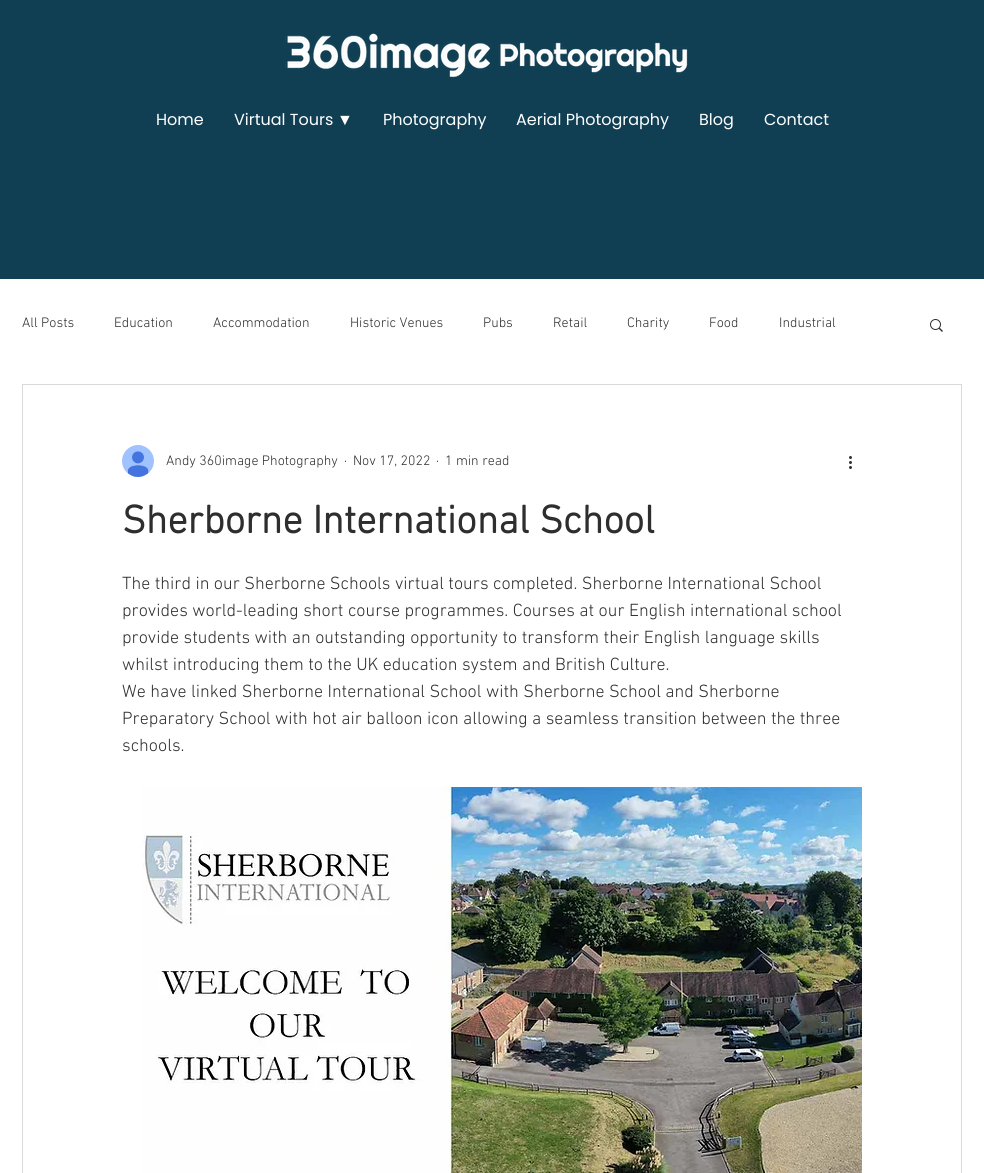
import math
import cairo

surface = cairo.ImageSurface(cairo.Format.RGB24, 984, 1173)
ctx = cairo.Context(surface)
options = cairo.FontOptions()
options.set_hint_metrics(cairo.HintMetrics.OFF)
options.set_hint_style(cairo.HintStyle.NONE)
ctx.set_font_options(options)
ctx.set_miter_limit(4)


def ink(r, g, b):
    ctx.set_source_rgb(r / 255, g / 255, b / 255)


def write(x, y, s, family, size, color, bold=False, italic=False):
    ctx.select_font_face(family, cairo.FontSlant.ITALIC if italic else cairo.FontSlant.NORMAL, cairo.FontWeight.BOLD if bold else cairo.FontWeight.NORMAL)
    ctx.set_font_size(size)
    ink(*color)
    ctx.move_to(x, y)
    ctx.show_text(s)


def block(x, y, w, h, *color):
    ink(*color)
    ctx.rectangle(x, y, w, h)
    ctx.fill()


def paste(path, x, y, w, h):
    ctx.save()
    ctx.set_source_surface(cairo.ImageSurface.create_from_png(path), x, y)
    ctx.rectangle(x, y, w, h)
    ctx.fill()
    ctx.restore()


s1 = dict(family="Poppins", size=16, color=(255, 255, 255))
s2 = dict(family="Liberation Serif", size=16, color=(255, 255, 255))
s3 = dict(family="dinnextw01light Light", size=14, color=(47, 46, 46))
s4 = dict(family="dinnextw01light", size=40, color=(47, 46, 46), bold=True)
s5 = dict(family="dinnextw01light Light", size=18, color=(47, 46, 46))

ink(255, 255, 255)
ctx.paint()
block(0, 0, 984, 279, 16, 63, 84)
paste("pic1.png", 285, 33, 403, 45)
write(156, 125, "Home", **s1)
write(234, 125, "Virtual Tours", **s1)
write(337, 125, "▼", **s2)
write(383, 125, "Photography", **s1)
write(516, 125, "Aerial Photography", **s1)
write(699, 125, "Blog", **s1)
write(764, 125, "Contact", **s1)
write(22, 327, "All Posts", **s3)
write(114, 327, "Education", **s3)
write(213, 327, "Accommodation", **s3)
write(350, 327, "Historic Venues", **s3)
write(483, 327, "Pubs", **s3)
write(553, 327, "Retail", **s3)
write(627, 327, "Charity", **s3)
write(709, 327, "Food", **s3)
write(779, 327, "Industrial", **s3)
paste("pic2.png", 930, 319, 13, 13)
ctx.rectangle(22.5, 384.5, 939, 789)
ink(217, 217, 217)
ctx.set_line_width(1)
ctx.stroke()
paste("pic3.png", 122, 445, 32, 32)
write(166, 465, "Andy 360image Photography", **s3)
write(344, 465, "·", **s3)
write(353, 465, "Nov 17, 2022", **s3)
write(436, 465, "·", **s3)
write(445, 465, "1 min read", **s3)
paste("pic4.png", 849, 456, 3, 13)
write(122, 533, "Sherborne International School", **s4)
write(122, 589, "The third in our Sherborne Schools virtual tours completed. Sherborne International School", **s5)
write(122, 616, "provides world-leading short course programmes. Courses at our English international school", **s5)
write(122, 643, "provide students with an outstanding opportunity to transform their English language skills", **s5)
write(122, 670, "whilst introducing them to the UK education system and British Culture.", **s5)
write(122, 697, "We have linked Sherborne International School with Sherborne School and Sherborne", **s5)
write(122, 724, "Preparatory School with hot air balloon icon allowing a seamless transition between the three", **s5)
write(122, 751, "schools.", **s5)
paste("pic5.png", 142, 787, 720, 386)
surface.write_to_png("screenshot.png")
